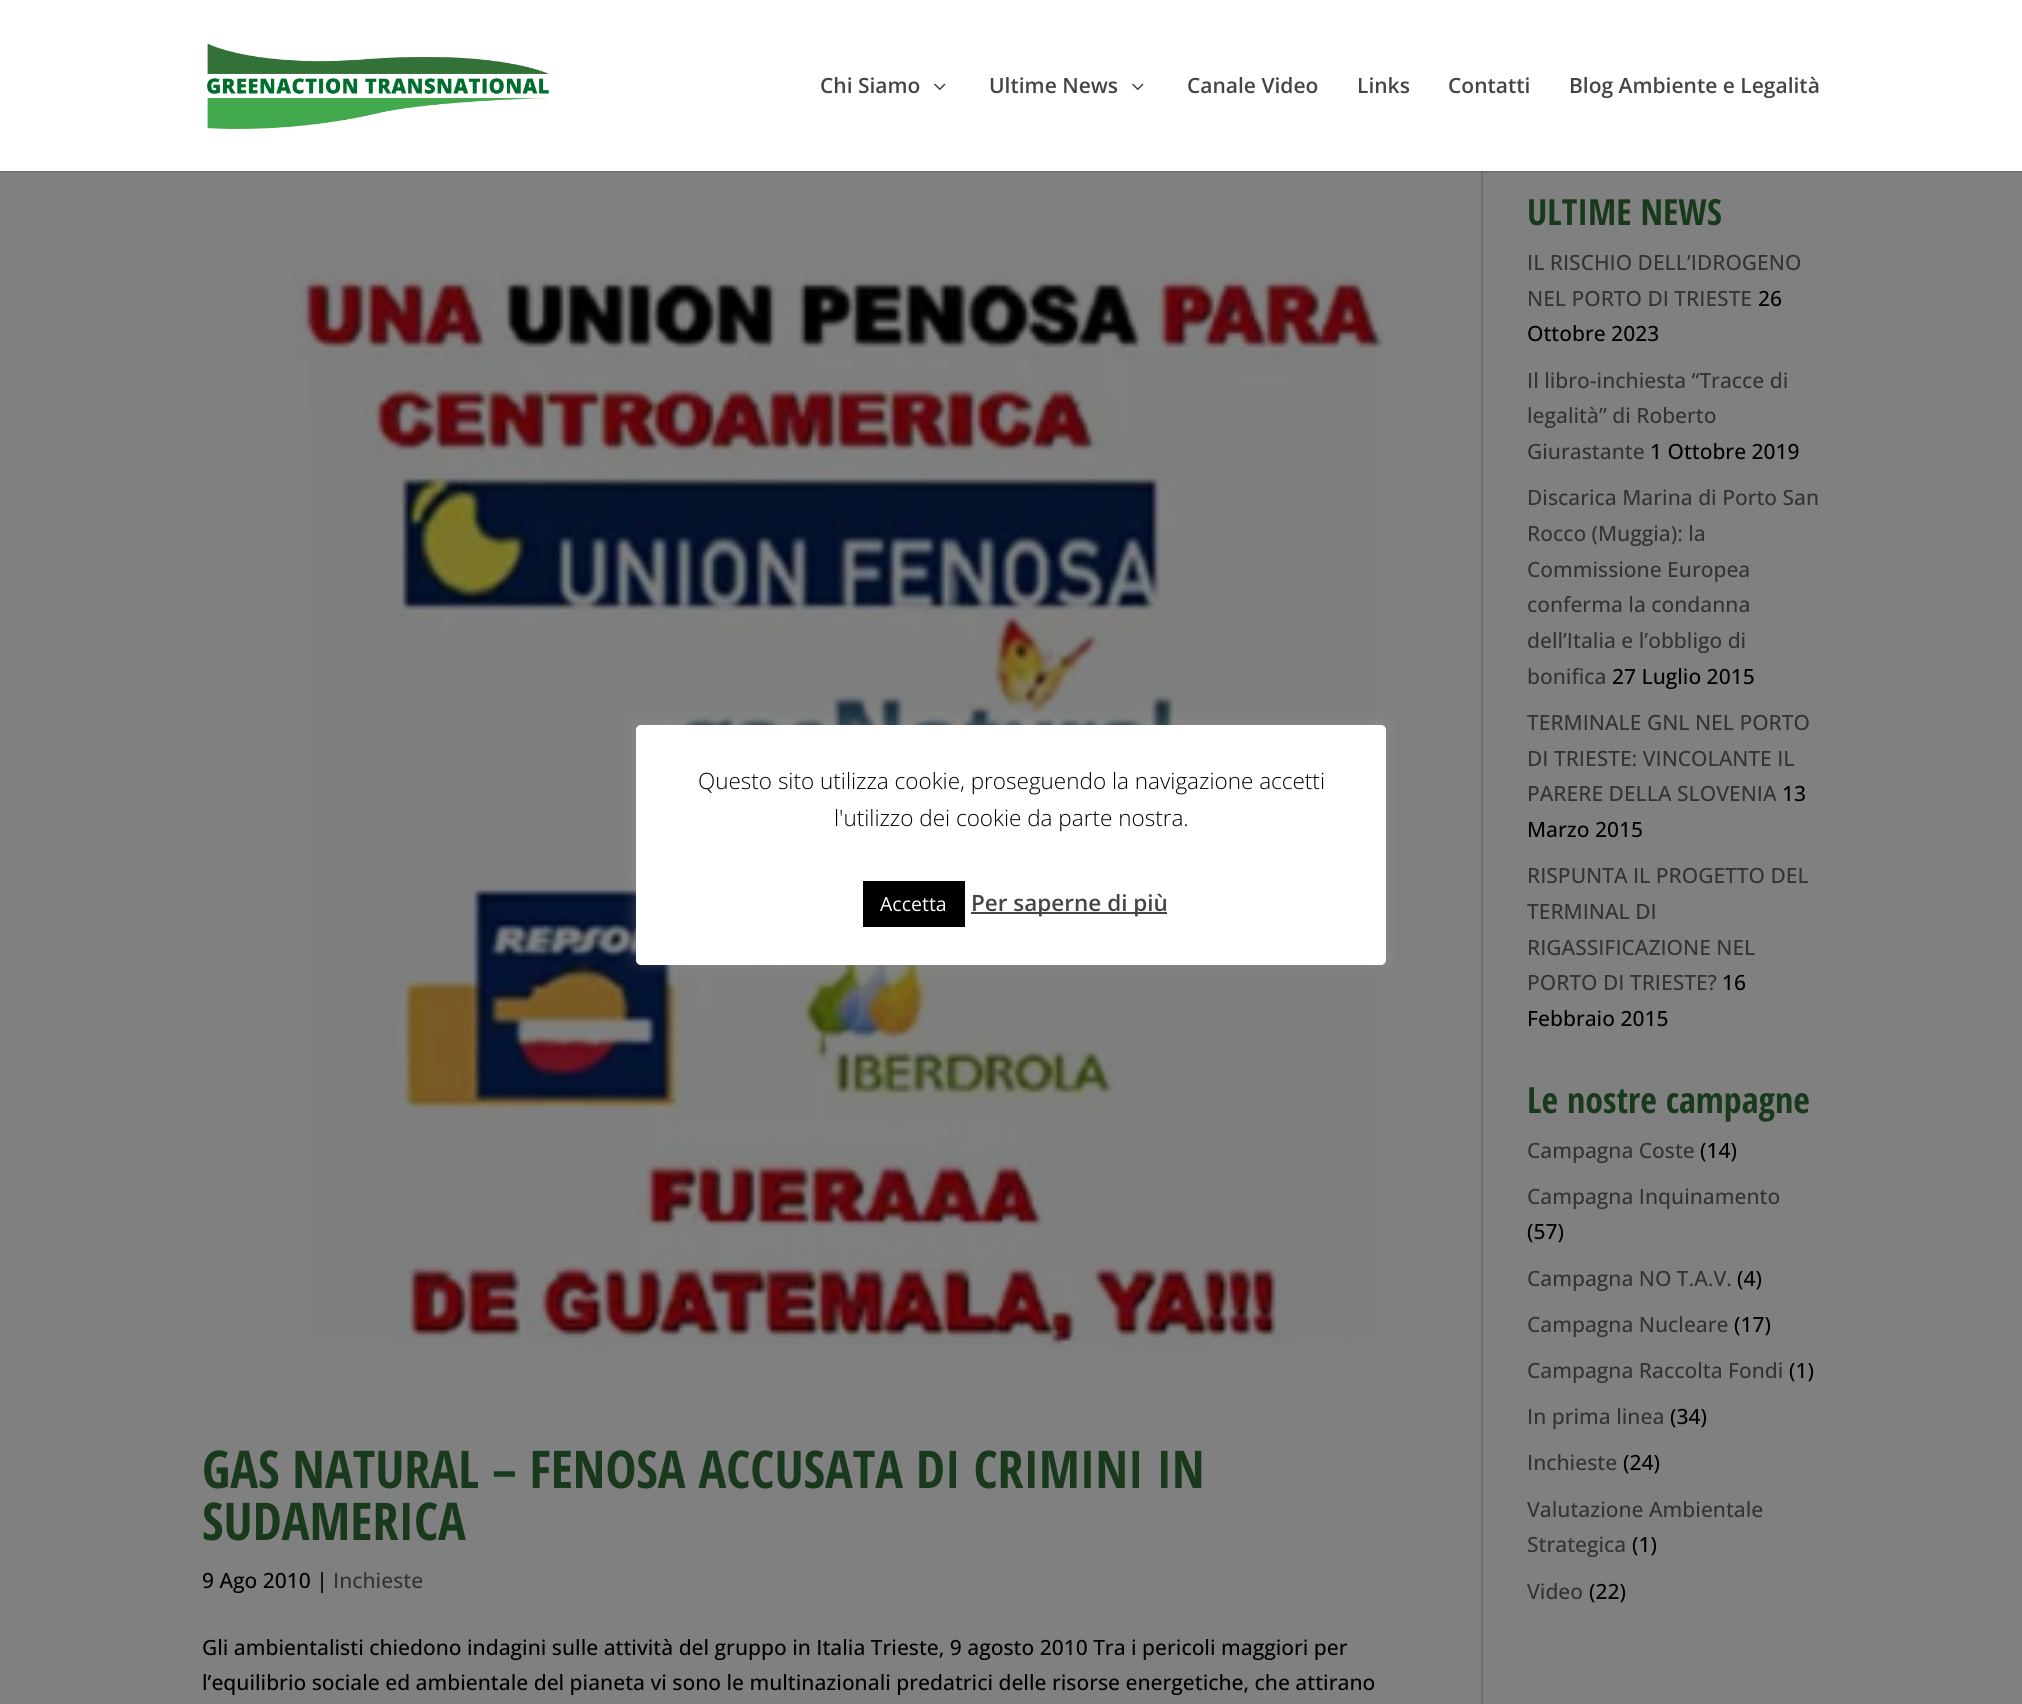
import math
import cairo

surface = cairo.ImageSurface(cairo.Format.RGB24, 2022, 1704)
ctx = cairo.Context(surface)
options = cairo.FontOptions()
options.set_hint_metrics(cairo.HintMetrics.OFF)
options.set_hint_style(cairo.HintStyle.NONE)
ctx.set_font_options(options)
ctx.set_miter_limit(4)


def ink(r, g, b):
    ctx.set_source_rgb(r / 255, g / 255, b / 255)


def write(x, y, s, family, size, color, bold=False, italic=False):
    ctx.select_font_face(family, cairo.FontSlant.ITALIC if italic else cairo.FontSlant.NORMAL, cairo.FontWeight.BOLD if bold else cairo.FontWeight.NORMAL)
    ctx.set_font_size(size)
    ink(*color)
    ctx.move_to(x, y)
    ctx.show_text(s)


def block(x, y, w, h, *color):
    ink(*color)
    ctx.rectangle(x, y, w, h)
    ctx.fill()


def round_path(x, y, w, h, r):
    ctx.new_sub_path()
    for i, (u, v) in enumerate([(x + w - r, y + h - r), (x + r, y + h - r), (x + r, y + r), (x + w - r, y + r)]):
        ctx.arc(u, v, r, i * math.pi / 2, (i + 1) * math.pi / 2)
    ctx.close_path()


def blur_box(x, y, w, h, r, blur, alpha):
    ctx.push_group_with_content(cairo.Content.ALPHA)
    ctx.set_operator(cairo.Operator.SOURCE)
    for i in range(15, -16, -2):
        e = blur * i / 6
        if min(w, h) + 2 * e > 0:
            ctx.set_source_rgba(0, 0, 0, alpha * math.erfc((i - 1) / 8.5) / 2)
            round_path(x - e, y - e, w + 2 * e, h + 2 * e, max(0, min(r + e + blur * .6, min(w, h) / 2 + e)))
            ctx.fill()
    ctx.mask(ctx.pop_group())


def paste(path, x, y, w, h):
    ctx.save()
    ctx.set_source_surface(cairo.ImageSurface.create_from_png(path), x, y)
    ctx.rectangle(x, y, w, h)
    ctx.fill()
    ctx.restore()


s1 = dict(family="Open Sans SemiBold", size=21, color=(68, 68, 68))
s2 = dict(family="Open Sans Condensed", size=52, color=(25, 57, 28), bold=True)
s3 = dict(family="Open Sans Medium", size=21, color=(0, 0, 0))
s4 = dict(family="Open Sans Medium", size=21, color=(51, 51, 51))
s5 = dict(family="Open Sans Condensed", size=36, color=(25, 57, 28), bold=True)
s6 = dict(family="Open Sans Light", size=22.5, color=(0, 0, 0))
s7 = dict(family="Open Sans", size=19.5, color=(255, 255, 255))
s8 = dict(family="Open Sans SemiBold", size=22.5, color=(68, 68, 68))

ink(128, 128, 128)
ctx.paint()
block(0, 171, 2022, 2, 115, 115, 115)
block(0, 0, 2022, 171, 255, 255, 255)
paste("pic1.png", 207, 43, 342, 86)
write(820, 93, "Chi Siamo", **s1)
paste("pic2.png", 934, 83, 12, 7)
write(989, 93, "Ultime News", **s1)
paste("pic2.png", 1132, 83, 12, 7)
write(1187, 93, "Canale Video", **s1)
write(1357, 93, "Links", **s1)
write(1448, 93, "Contatti", **s1)
write(1569, 93, "Blog Ambiente e Legalità", **s1)
block(1481, 173, 2, 1531, 113, 113, 113)
block(1481, 171, 2, 2, 102, 102, 102)
paste("pic3.png", 285, 274, 1101, 1076)
write(202, 1488, "GAS NATURAL – FENOSA ACCUSATA DI CRIMINI IN", **s2)
write(202, 1540, "SUDAMERICA", **s2)
write(202, 1588, "9 Ago 2010 |", **s3)
write(333, 1588, "Inchieste", **s4)
write(202, 1655, "Gli ambientalisti chiedono indagini sulle attività del gruppo in Italia Trieste, 9 agosto 2010 Tra i pericoli maggiori per", **s3)
write(202, 1690, "l’equilibrio sociale ed ambientale del pianeta vi sono le multinazionali predatrici delle risorse energetiche, che attirano", **s3)
write(1527, 225, "ULTIME NEWS", **s5)
write(1527, 270, "IL RISCHIO DELL’IDROGENO", **s4)
write(1527, 306, "NEL PORTO DI TRIESTE", **s4)
write(1758, 306, "26", **s3)
write(1527, 341, "Ottobre 2023", **s3)
write(1527, 388, "Il libro-inchiesta “Tracce di", **s4)
write(1527, 423, "legalità” di Roberto", **s4)
write(1527, 459, "Giurastante", **s4)
write(1650, 459, "1 Ottobre 2019", **s3)
write(1527, 505, "Discarica Marina di Porto San", **s4)
write(1527, 541, "Rocco (Muggia): la", **s4)
write(1527, 577, "Commissione Europea", **s4)
write(1527, 612, "conferma la condanna", **s4)
write(1527, 648, "dell’Italia e l’obbligo di", **s4)
write(1527, 684, "bonifica", **s4)
write(1612, 684, "27 Luglio 2015", **s3)
write(1527, 730, "TERMINALE GNL NEL PORTO", **s4)
write(1527, 766, "DI TRIESTE: VINCOLANTE IL", **s4)
write(1527, 801, "PARERE DELLA SLOVENIA", **s4)
write(1782, 801, "13", **s3)
write(1527, 837, "Marzo 2015", **s3)
write(1527, 883, "RISPUNTA IL PROGETTO DEL", **s4)
write(1527, 919, "TERMINAL DI", **s4)
write(1527, 955, "RIGASSIFICAZIONE NEL", **s4)
write(1527, 990, "PORTO DI TRIESTE?", **s4)
write(1722, 990, "16", **s3)
write(1527, 1026, "Febbraio 2015", **s3)
write(1527, 1113, "Le nostre campagne", **s5)
write(1527, 1158, "Campagna Coste", **s4)
write(1700, 1158, "(14)", **s3)
write(1527, 1204, "Campagna Inquinamento", **s4)
write(1527, 1239, "(57)", **s3)
write(1527, 1286, "Campagna NO T.A.V.", **s4)
write(1737, 1286, "(4)", **s3)
write(1527, 1332, "Campagna Nucleare", **s4)
write(1734, 1332, "(17)", **s3)
write(1527, 1378, "Campagna Raccolta Fondi", **s4)
write(1789, 1378, "(1)", **s3)
write(1527, 1424, "In prima linea", **s4)
write(1670, 1424, "(34)", **s3)
write(1527, 1470, "Inchieste", **s4)
write(1623, 1470, "(24)", **s3)
write(1527, 1517, "Valutazione Ambientale", **s4)
write(1527, 1552, "Strategica", **s4)
write(1632, 1552, "(1)", **s3)
write(1527, 1599, "Video", **s4)
write(1589, 1599, "(22)", **s3)
ink(172, 171, 171)
blur_box(636, 723, 750, 240, 5, 7.5, 0.3)
ink(255, 255, 255)
round_path(636, 725, 750, 240, 5)
ctx.fill()
write(698, 789, "Questo sito utilizza cookie, proseguendo la navigazione accetti", **s6)
write(834, 826, "l'utilizzo dei cookie da parte nostra.", **s6)
block(863, 881, 102, 46, 0, 0, 0)
write(880, 911, "Accetta", **s7)
block(971, 912, 196, 2, 68, 68, 68)
write(971, 911, "Per saperne di più", **s8)
surface.write_to_png("screenshot.png")
